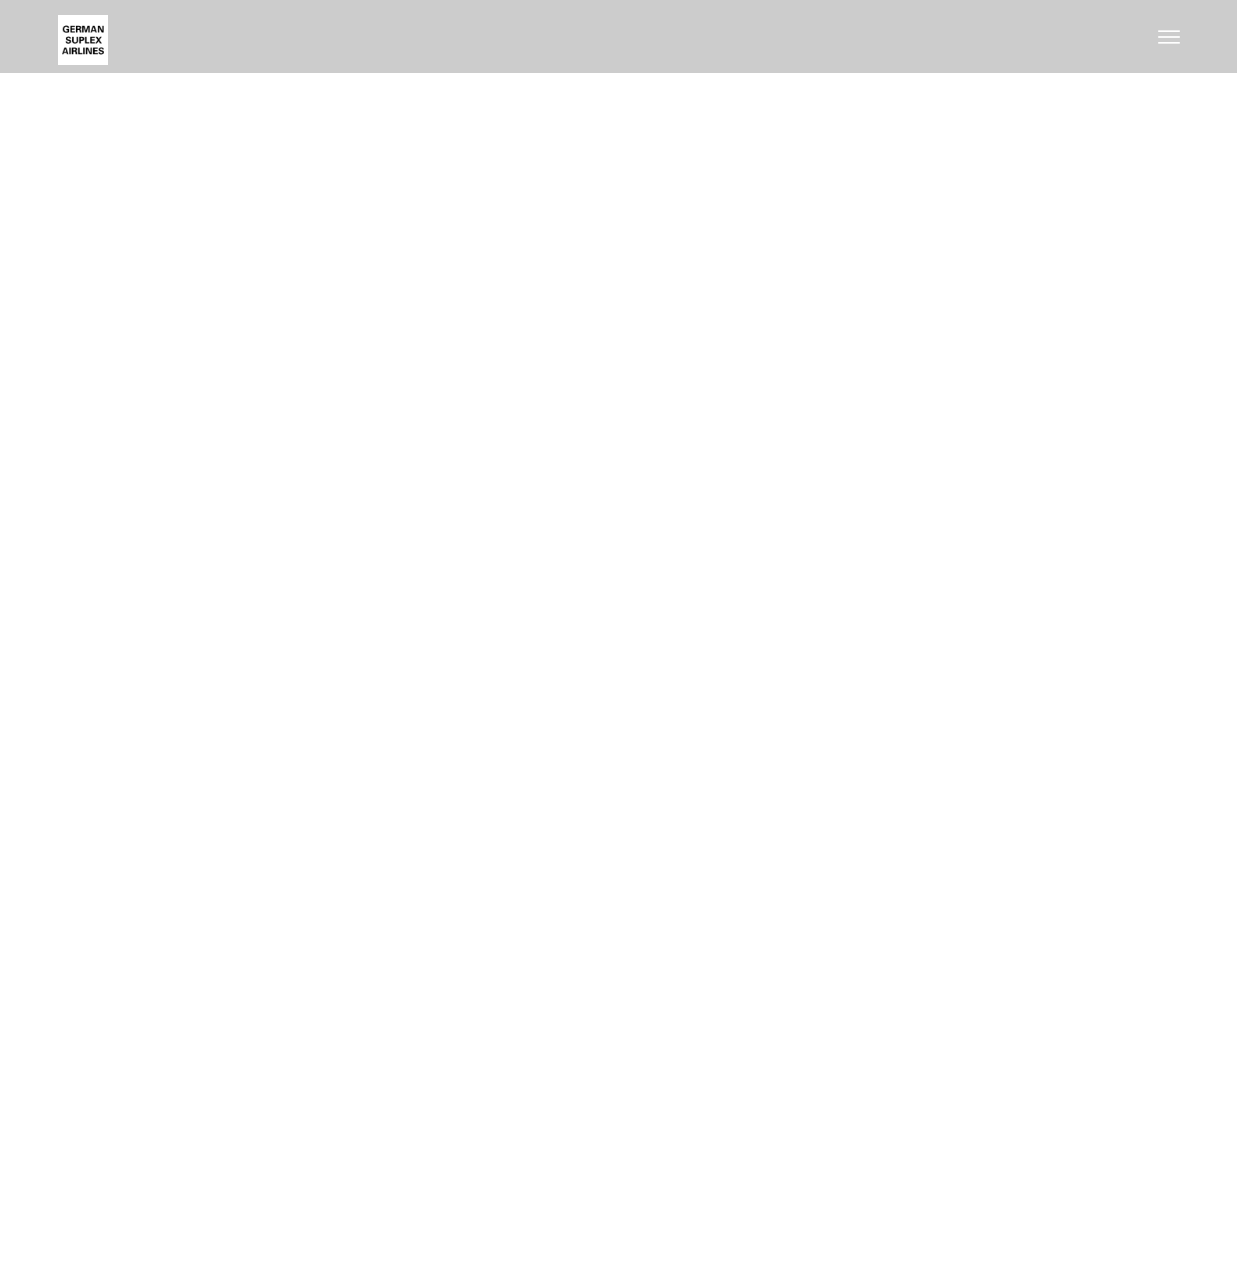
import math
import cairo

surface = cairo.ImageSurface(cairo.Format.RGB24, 1237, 1265)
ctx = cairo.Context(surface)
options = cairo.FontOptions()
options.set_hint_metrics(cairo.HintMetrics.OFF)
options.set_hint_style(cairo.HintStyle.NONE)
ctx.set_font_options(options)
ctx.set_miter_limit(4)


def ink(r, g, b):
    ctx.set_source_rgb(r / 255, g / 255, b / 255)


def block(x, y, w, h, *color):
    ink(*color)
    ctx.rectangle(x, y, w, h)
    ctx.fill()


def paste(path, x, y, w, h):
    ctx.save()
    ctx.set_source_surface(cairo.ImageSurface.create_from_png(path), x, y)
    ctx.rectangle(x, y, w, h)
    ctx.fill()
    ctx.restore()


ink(255, 255, 255)
ctx.paint()
block(0, 0, 1237, 73, 204, 204, 204)
paste("pic1.png", 58, 15, 50, 50)
paste("pic2.png", 1158, 30, 22, 14)
surface.write_to_png("screenshot.png")
